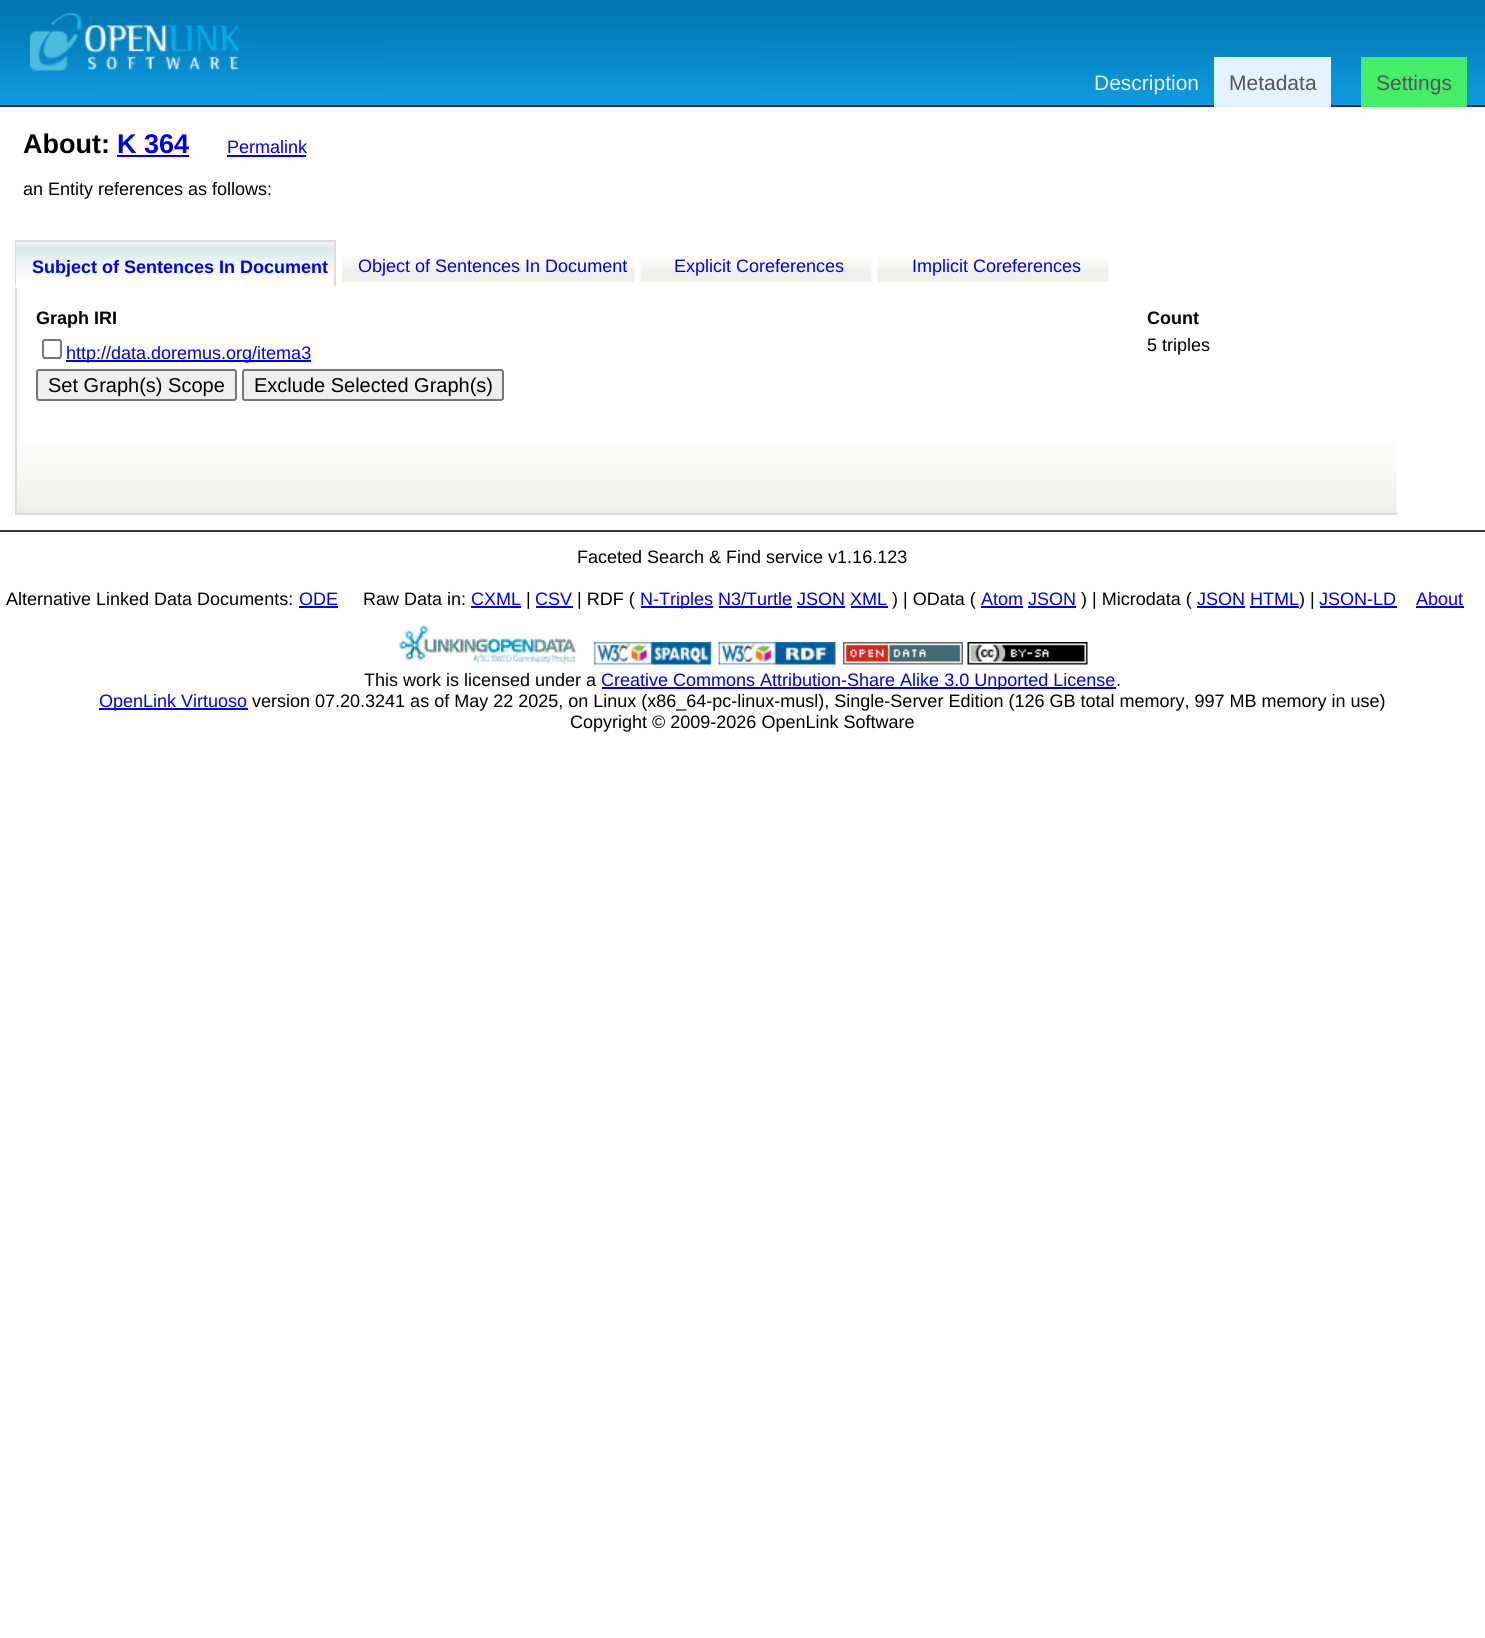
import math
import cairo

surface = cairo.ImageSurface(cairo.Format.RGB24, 1485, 1638)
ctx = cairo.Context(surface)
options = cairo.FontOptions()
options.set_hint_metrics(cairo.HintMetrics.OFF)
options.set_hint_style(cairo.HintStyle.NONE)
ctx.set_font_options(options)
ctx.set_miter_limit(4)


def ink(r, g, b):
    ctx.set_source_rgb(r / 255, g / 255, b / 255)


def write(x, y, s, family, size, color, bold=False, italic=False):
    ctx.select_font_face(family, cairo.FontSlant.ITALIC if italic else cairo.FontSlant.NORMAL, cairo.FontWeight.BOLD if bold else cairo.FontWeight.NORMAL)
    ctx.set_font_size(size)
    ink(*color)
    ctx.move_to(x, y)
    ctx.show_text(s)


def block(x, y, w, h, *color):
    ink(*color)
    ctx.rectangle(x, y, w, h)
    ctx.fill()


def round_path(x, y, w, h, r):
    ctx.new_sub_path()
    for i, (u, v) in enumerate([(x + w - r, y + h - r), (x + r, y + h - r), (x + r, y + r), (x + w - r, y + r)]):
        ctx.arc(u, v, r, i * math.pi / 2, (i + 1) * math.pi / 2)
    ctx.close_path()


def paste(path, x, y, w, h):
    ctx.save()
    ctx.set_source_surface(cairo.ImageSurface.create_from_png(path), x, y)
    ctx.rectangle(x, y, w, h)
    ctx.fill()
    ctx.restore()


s1 = dict(family="Liberation Sans", size=21, color=(233, 242, 247))
s2 = dict(family="Liberation Sans", size=21, color=(85, 85, 85))
s3 = dict(family="Liberation Sans", size=27, color=(0, 0, 0), bold=True)
s4 = dict(family="Liberation Sans", size=27, color=(0, 0, 238), bold=True)
s5 = dict(family="Liberation Sans", size=18, color=(0, 0, 238))
s6 = dict(family="Liberation Sans", size=18, color=(0, 0, 0))
s7 = dict(family="Liberation Sans", size=18, color=(0, 0, 238), bold=True)
s8 = dict(family="Liberation Sans", size=18, color=(0, 0, 0), bold=True)
s9 = dict(family="Liberation Sans", size=20, color=(0, 0, 0))

ink(255, 255, 255)
ctx.paint()
paste("pic1.png", 0, 0, 1485, 105)
block(0, 105, 1485, 2, 34, 34, 102)
paste("pic2.png", 30, 13, 209, 58)
write(1094, 90, "Description", **s1)
block(1214, 57, 117, 50, 228, 242, 253)
write(1229, 90, "Metadata", **s2)
block(1361, 57, 106, 50, 68, 238, 102)
write(1376, 90, "Settings", **s2)
write(23, 153, "About:", **s3)
write(117, 153, "K 364", **s4)
block(117, 155, 72, 2, 0, 0, 238)
write(227, 153, "Permalink", **s5)
block(227, 155, 79, 2, 0, 0, 238)
write(23, 195, "an Entity references as follows:", **s6)
paste("pic3.png", 16, 242, 318, 34)
block(15, 240, 321, 2, 221, 221, 221)
ctx.new_path()
ctx.move_to(336, 240)
ctx.line_to(336, 288)
ctx.line_to(334, 285)
ctx.line_to(334, 242)
ctx.close_path()
ctx.fill()
ink(255, 255, 255)
ctx.new_path()
ctx.move_to(336, 288)
ctx.line_to(15, 288)
ctx.line_to(16, 285)
ctx.line_to(334, 285)
ctx.close_path()
ctx.fill()
ink(221, 221, 221)
ctx.new_path()
ctx.move_to(15, 288)
ctx.line_to(15, 240)
ctx.line_to(16, 242)
ctx.line_to(16, 285)
ctx.close_path()
ctx.fill()
write(32, 273, "Subject of Sentences In Document", **s7)
paste("pic4.png", 342, 257, 293, 25)
write(358, 272, "Object of Sentences In Document", **s5)
paste("pic5.png", 640, 257, 232, 25)
write(674, 272, "Explicit Coreferences", **s5)
paste("pic5.png", 877, 257, 232, 25)
write(912, 272, "Implicit Coreferences", **s5)
paste("pic6.png", 17, 442, 1380, 71)
block(15, 513, 1382, 2, 221, 221, 221)
block(15, 288, 2, 227, 221, 221, 221)
write(36, 324, "Graph IRI", **s8)
write(1147, 324, "Count", **s8)
round_path(43, 340, 18, 18, 2)
ink(118, 118, 118)
ctx.stroke()
block(66, 360, 245, 2, 0, 0, 238)
write(66, 359, "http://data.doremus.org/itema3", **s5)
write(1147, 351, "5 triples", **s6)
ink(239, 239, 239)
round_path(37, 370, 199, 30, 2)
ctx.fill_preserve()
ink(118, 118, 118)
ctx.stroke()
write(48, 392, "Set Graph(s) Scope", **s9)
ink(239, 239, 239)
round_path(243, 370, 260, 30, 2)
ctx.fill_preserve()
ink(118, 118, 118)
ctx.stroke()
write(254, 392, "Exclude Selected Graph(s)", **s9)
block(0, 530, 1485, 2, 51, 51, 85)
write(577, 563, "Faceted Search & Find service v1.16.123", **s6)
write(6, 605, "Alternative Linked Data Documents:", **s6)
write(299, 605, "ODE", **s5)
block(299, 606, 39, 2, 0, 0, 238)
write(363, 605, "Raw Data in:", **s6)
write(471, 605, "CXML", **s5)
block(471, 606, 50, 2, 0, 0, 238)
write(526, 605, "|", **s6)
write(535, 605, "CSV", **s5)
block(536, 606, 37, 2, 0, 0, 238)
write(577, 605, "| RDF (", **s6)
block(641, 606, 72, 2, 0, 0, 238)
write(640, 605, "N-Triples N3/Turtle JSON XML", **s5)
write(892, 605, ") | OData (", **s6)
write(981, 605, "Atom JSON", **s5)
block(981, 606, 42, 2, 0, 0, 238)
write(1081, 605, ") | Microdata (", **s6)
write(1197, 605, "JSON HTML", **s5)
block(1197, 606, 48, 2, 0, 0, 238)
block(1250, 606, 49, 2, 0, 0, 238)
write(1299, 605, ") |", **s6)
write(1319, 605, "JSON-LD", **s5)
block(1320, 606, 77, 2, 0, 0, 238)
write(1416, 605, "About", **s5)
block(1416, 606, 48, 2, 0, 0, 238)
block(719, 606, 73, 2, 0, 0, 238)
block(797, 606, 48, 2, 0, 0, 238)
block(851, 606, 37, 2, 0, 0, 238)
block(1028, 606, 48, 2, 0, 0, 238)
paste("pic7.png", 398, 625, 179, 40)
paste("pic8.png", 593, 642, 119, 23)
paste("pic9.png", 718, 642, 118, 23)
paste("pic10.png", 843, 642, 120, 23)
paste("pic11.png", 967, 642, 121, 23)
write(364, 686, "This work is licensed under a", **s6)
block(602, 687, 514, 2, 0, 0, 238)
write(601, 686, "Creative Commons Attribution-Share Alike 3.0 Unported License", **s5)
write(1116, 686, ".", **s6)
block(99, 708, 149, 2, 0, 0, 238)
write(99, 707, "OpenLink Virtuoso", **s5)
write(252, 707, "version 07.20.3241 as of May 22 2025, on Linux (x86_64-pc-linux-musl), Single-Server Edition (126 GB total memory, 997 MB memory in use)", **s6)
write(570, 728, "Copyright © 2009-2026 OpenLink Software", **s6)
surface.write_to_png("screenshot.png")
